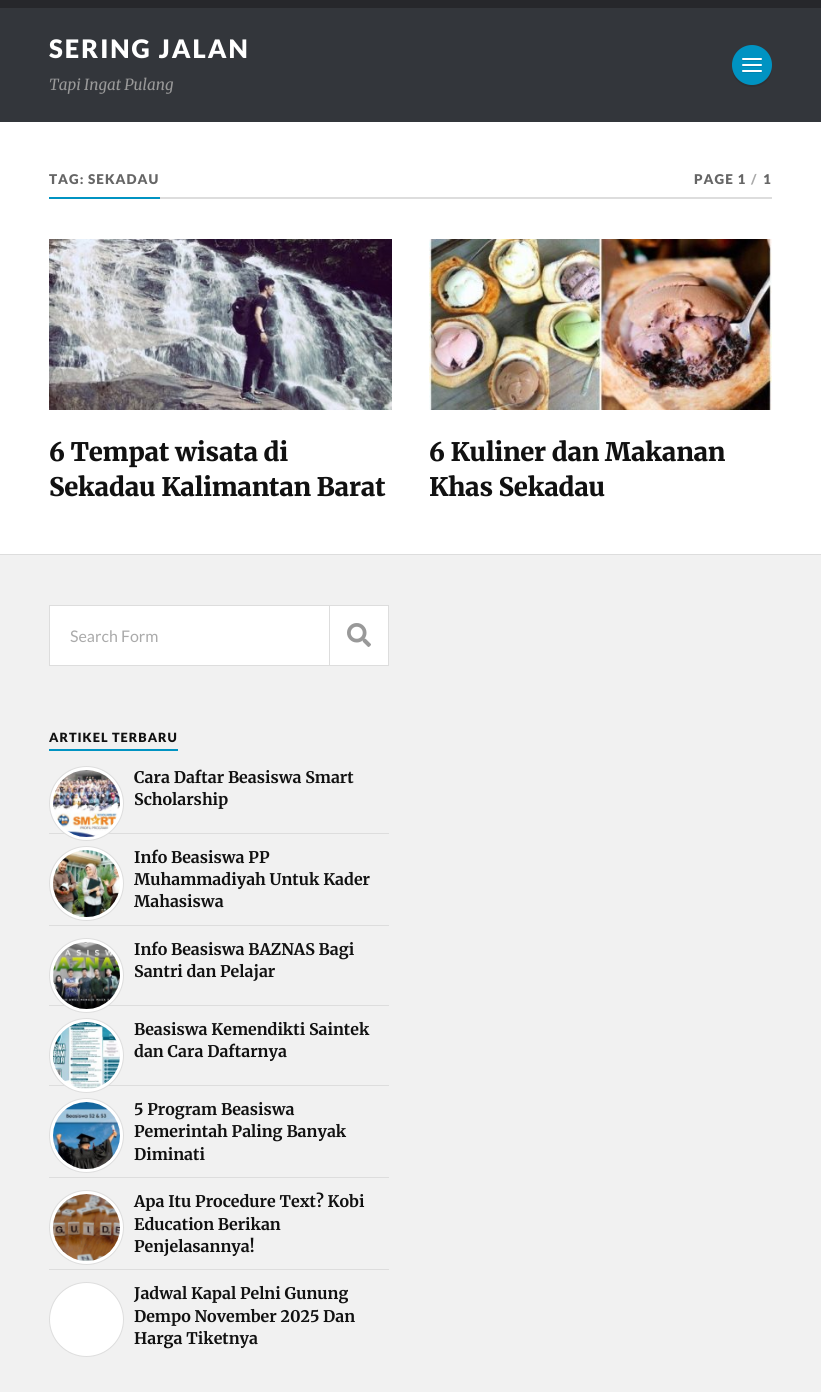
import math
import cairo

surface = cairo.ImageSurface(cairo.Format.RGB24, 821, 1392)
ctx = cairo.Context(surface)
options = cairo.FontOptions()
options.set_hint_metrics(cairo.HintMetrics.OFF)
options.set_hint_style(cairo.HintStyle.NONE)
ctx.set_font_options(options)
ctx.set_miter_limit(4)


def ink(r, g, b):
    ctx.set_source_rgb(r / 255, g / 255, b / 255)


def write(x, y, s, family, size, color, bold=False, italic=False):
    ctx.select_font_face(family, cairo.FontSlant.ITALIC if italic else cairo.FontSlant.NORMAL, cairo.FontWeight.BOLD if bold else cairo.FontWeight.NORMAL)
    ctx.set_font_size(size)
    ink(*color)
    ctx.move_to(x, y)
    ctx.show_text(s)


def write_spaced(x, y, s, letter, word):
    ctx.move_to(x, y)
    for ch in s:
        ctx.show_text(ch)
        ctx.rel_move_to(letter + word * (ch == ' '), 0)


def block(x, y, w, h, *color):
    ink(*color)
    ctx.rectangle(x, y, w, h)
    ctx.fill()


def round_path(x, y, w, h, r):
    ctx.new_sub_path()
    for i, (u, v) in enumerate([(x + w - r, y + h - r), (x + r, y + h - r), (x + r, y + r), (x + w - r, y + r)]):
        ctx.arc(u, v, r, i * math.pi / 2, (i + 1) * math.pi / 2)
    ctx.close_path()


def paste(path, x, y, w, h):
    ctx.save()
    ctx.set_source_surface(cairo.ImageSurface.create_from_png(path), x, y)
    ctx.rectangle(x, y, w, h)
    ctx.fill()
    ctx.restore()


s1 = dict(family="Merriweather Light", size=15.25, color=(153, 153, 153), italic=True)
s2 = dict(family="Lato", size=16, color=(170, 170, 170))
s3 = dict(family="Merriweather", size=16, color=(17, 17, 17), bold=True)

ink(255, 255, 255)
ctx.paint()
block(0, 8, 821, 114, 51, 54, 59)
block(0, 0, 821, 8, 38, 39, 43)
ctx.select_font_face("Lato Black")
ctx.set_font_size(25.5)
ink(255, 255, 255)
write_spaced(49, 58, "SERING JALAN", 2, 0)
ink(46, 49, 53)
ctx.new_path()
ctx.move_to(772, 66)
ctx.curve_to(771, 91, 733, 91, 732, 66)
ctx.curve_to(731, 94, 773, 94, 772, 66)
ctx.close_path()
ctx.fill()
ink(0, 147, 194)
ctx.arc(752, 65, 20, 0, 2 * math.pi)
ctx.fill()
ink(0, 132, 175)
ctx.new_path()
ctx.move_to(742, 59.5)
ctx.curve_to(741, 61, 744, 61, 746, 61)
ctx.line_to(758, 61)
ctx.curve_to(760, 61, 763, 61, 762, 59.5)
ctx.line_to(761, 60)
ctx.line_to(743, 60)
ctx.close_path()
ctx.fill()
ink(255, 255, 255)
round_path(742, 58, 20, 2, 1)
ctx.fill()
ink(0, 132, 175)
ctx.new_path()
ctx.move_to(742, 65.5)
ctx.curve_to(741, 67, 744, 67, 746, 67)
ctx.line_to(758, 67)
ctx.curve_to(760, 67, 763, 67, 762, 65.5)
ctx.line_to(761, 66)
ctx.line_to(743, 66)
ctx.close_path()
ctx.fill()
ink(255, 255, 255)
round_path(742, 64, 20, 2, 1)
ctx.fill()
ink(0, 132, 175)
ctx.new_path()
ctx.move_to(742, 71.5)
ctx.curve_to(741, 73, 744, 73, 746, 73)
ctx.line_to(758, 73)
ctx.curve_to(760, 73, 763, 73, 762, 71.5)
ctx.line_to(761, 72)
ctx.line_to(743, 72)
ctx.close_path()
ctx.fill()
ink(255, 255, 255)
round_path(742, 70, 20, 2, 1)
ctx.fill()
write(49, 90, "Tapi Ingat Pulang", **s1)
block(160, 197, 612, 2, 221, 221, 221)
block(49, 197, 111, 2, 0, 147, 194)
ctx.select_font_face("Lato Black")
ctx.set_font_size(13.5)
ink(102, 102, 102)
write_spaced(49, 184, "TAG: SEKADAU", 1, 0)
write_spaced(694, 184, "PAGE 1", 1, 0)
ink(170, 170, 170)
write_spaced(751, 184, "/", 1, 0)
ink(102, 102, 102)
write_spaced(763, 184, "1", 1, 0)
paste("pic1.png", 49, 239, 343, 171)
ctx.select_font_face("Merriweather Black")
ctx.set_font_size(25.5)
ink(17, 17, 17)
write_spaced(49, 461, "6 Tempat wisata di", -0.25, 0)
write_spaced(49, 496, "Sekadau Kalimantan Barat", -0.25, 0)
paste("pic2.png", 429, 239, 343, 171)
write_spaced(429, 461, "6 Kuliner dan Makanan", -0.25, 0)
write_spaced(429, 496, "Khas Sekadau", -0.25, 0)
block(0, 555, 821, 837, 241, 241, 241)
block(0, 554, 821, 1, 221, 221, 221)
ink(255, 255, 255)
ctx.rectangle(49.5, 605.5, 339, 60)
ctx.fill_preserve()
ink(221, 221, 221)
ctx.set_line_width(1)
ctx.stroke()
write(70, 642, "Search Form", **s2)
block(329, 606, 1, 59, 221, 221, 221)
paste("pic3.png", 347, 623, 24, 24)
block(49, 749, 129, 2, 0, 147, 194)
ctx.select_font_face("Lato Black")
ctx.set_font_size(12.75)
ink(17, 17, 17)
write_spaced(49, 742, "ARTIKEL TERBARU", 1, 0)
block(49, 833, 340, 1, 221, 221, 221)
ink(255, 255, 255)
ctx.new_path()
ctx.arc(86.5, 803.5, 37, 0, 2 * math.pi)
ctx.fill_preserve()
ink(221, 221, 221)
ctx.stroke()
paste("pic4.png", 53, 770, 67, 67)
write(134, 783, "Cara Daftar Beasiswa Smart", **s3)
write(134, 805, "Scholarship", **s3)
block(49, 925, 340, 1, 221, 221, 221)
ink(255, 255, 255)
ctx.new_path()
ctx.arc(86.5, 883.5, 37, 0, 2 * math.pi)
ctx.fill_preserve()
ink(221, 221, 221)
ctx.stroke()
paste("pic5.png", 53, 850, 67, 67)
write(134, 863, "Info Beasiswa PP", **s3)
write(134, 885, "Muhammadiyah Untuk Kader", **s3)
write(134, 907, "Mahasiswa", **s3)
block(49, 1005, 340, 1, 221, 221, 221)
ink(255, 255, 255)
ctx.new_path()
ctx.arc(86.5, 975.5, 37, 0, 2 * math.pi)
ctx.fill_preserve()
ink(221, 221, 221)
ctx.stroke()
paste("pic6.png", 53, 942, 67, 67)
write(134, 955, "Info Beasiswa BAZNAS Bagi", **s3)
write(134, 977, "Santri dan Pelajar", **s3)
block(49, 1085, 340, 1, 221, 221, 221)
ink(255, 255, 255)
ctx.new_path()
ctx.arc(86.5, 1055.5, 37, 0, 2 * math.pi)
ctx.fill_preserve()
ink(221, 221, 221)
ctx.stroke()
paste("pic7.png", 53, 1022, 67, 67)
write(134, 1035, "Beasiswa Kemendikti Saintek", **s3)
write(134, 1057, "dan Cara Daftarnya", **s3)
block(49, 1177, 340, 1, 221, 221, 221)
ink(255, 255, 255)
ctx.new_path()
ctx.arc(86.5, 1135.5, 37, 0, 2 * math.pi)
ctx.fill_preserve()
ink(221, 221, 221)
ctx.stroke()
paste("pic8.png", 53, 1102, 67, 67)
write(134, 1115, "5 Program Beasiswa", **s3)
write(134, 1137, "Pemerintah Paling Banyak", **s3)
write(134, 1160, "Diminati", **s3)
block(49, 1269, 340, 1, 221, 221, 221)
ink(255, 255, 255)
ctx.new_path()
ctx.arc(86.5, 1227.5, 37, 0, 2 * math.pi)
ctx.fill_preserve()
ink(221, 221, 221)
ctx.stroke()
paste("pic9.png", 53, 1194, 67, 67)
write(134, 1207, "Apa Itu Procedure Text? Kobi", **s3)
write(134, 1230, "Education Berikan", **s3)
write(134, 1252, "Penjelasannya!", **s3)
ink(255, 255, 255)
ctx.new_path()
ctx.arc(86.5, 1319.5, 37, 0, 2 * math.pi)
ctx.fill_preserve()
ink(221, 221, 221)
ctx.stroke()
write(134, 1299, "Jadwal Kapal Pelni Gunung", **s3)
write(134, 1322, "Dempo November 2025 Dan", **s3)
write(134, 1344, "Harga Tiketnya", **s3)
surface.write_to_png("screenshot.png")
